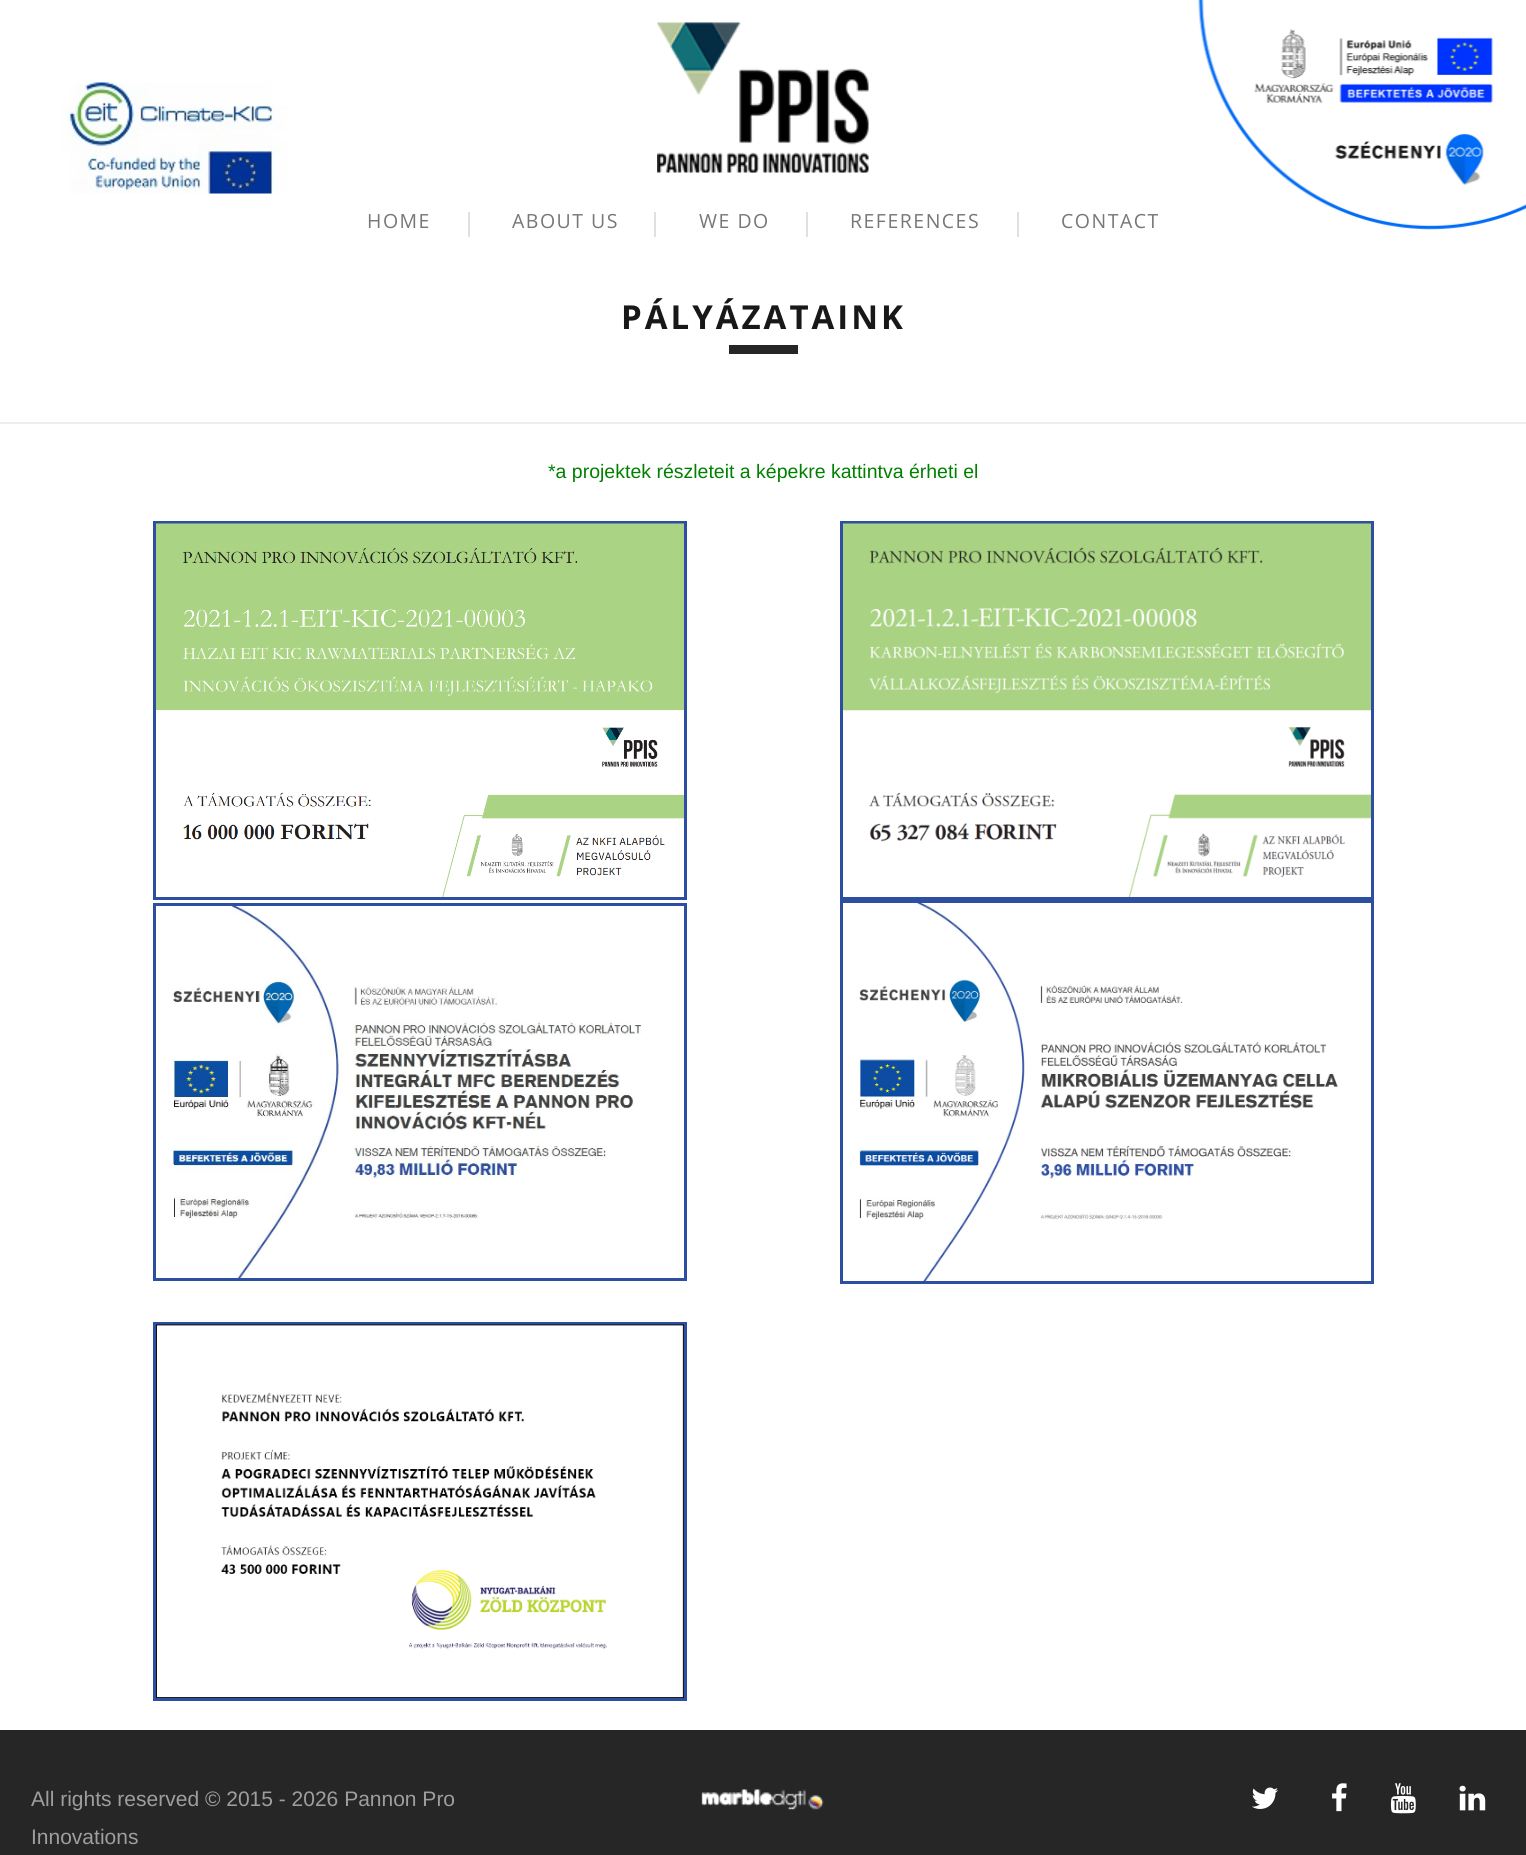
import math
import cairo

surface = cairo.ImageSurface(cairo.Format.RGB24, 1526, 1855)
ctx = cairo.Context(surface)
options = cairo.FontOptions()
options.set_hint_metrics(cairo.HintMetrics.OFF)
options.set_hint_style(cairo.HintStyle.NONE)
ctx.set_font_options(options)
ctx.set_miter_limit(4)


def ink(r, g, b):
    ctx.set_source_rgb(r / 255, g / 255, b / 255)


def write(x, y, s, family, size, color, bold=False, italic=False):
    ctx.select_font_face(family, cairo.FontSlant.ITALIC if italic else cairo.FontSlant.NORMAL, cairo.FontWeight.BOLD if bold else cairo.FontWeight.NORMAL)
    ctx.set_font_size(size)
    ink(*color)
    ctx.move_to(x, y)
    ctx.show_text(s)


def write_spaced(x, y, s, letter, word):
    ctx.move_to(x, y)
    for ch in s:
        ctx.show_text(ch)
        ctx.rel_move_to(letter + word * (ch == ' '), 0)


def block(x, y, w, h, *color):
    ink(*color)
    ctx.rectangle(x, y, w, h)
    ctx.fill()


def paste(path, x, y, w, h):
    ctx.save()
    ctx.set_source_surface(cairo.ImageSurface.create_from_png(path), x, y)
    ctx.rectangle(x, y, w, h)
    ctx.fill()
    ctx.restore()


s1 = dict(family="Liberation Sans", size=19.5, color=(0, 128, 0))
s2 = dict(family="Liberation Sans", size=21, color=(158, 158, 158))

ink(255, 255, 255)
ctx.paint()
paste("pic1.png", 60, 82, 228, 112)
paste("pic2.png", 657, 22, 212, 151)
paste("pic3.png", 1198, 0, 328, 230)
ctx.select_font_face("Open Sans")
ctx.set_font_size(19.5)
ink(119, 119, 119)
write_spaced(367, 228, "HOME", 1.5, 0)
block(468, 212, 2, 25, 224, 224, 224)
ink(119, 119, 119)
write_spaced(512, 228, "ABOUT US", 1.5, 0)
block(654, 212, 2, 25, 224, 224, 224)
ink(119, 119, 119)
write_spaced(699, 228, "WE DO", 1.5, 0)
block(806, 212, 2, 25, 224, 224, 224)
ink(119, 119, 119)
write_spaced(850, 228, "REFERENCES", 1.5, 0)
block(1017, 212, 2, 25, 224, 224, 224)
ink(119, 119, 119)
write_spaced(1061, 228, "CONTACT", 1.5, 0)
block(0, 422, 1526, 2, 238, 238, 238)
ctx.select_font_face("Open Sans", cairo.FontSlant.NORMAL, cairo.FontWeight.BOLD)
ctx.set_font_size(33)
ink(25, 24, 25)
write_spaced(621, 329, "PÁLYÁZATAINK", 3, 0)
block(729, 345, 69, 9, 38, 38, 38)
write(548, 478, "*a projektek részleteit a képekre kattintva érheti el", **s1)
ctx.rectangle(154.5, 522.5, 531, 376)
ink(46, 78, 162)
ctx.set_line_width(3)
ctx.stroke()
paste("pic4.png", 156, 523, 528, 374)
ctx.rectangle(841.5, 522.5, 531, 376)
ctx.stroke()
paste("pic5.png", 843, 523, 528, 374)
ctx.rectangle(154.5, 904.5, 531, 375)
ctx.stroke()
paste("pic6.png", 171, 906, 471, 372)
ctx.rectangle(841.5, 901.5, 531, 381)
ctx.stroke()
paste("pic7.png", 858, 903, 480, 378)
ctx.rectangle(154.5, 1323.5, 531, 376)
ctx.stroke()
paste("pic8.png", 156, 1324, 528, 374)
block(0, 1730, 1526, 125, 38, 38, 38)
write(31, 1806, "All rights reserved © 2015 - 2026 Pannon Pro", **s2)
write(31, 1844, "Innovations", **s2)
paste("pic9.png", 701, 1789, 123, 21)
paste("pic10.png", 1252, 1787, 26, 22)
paste("pic11.png", 1332, 1783, 15, 29)
paste("pic12.png", 1390, 1783, 26, 31)
paste("pic13.png", 1459, 1785, 27, 26)
surface.write_to_png("screenshot.png")
